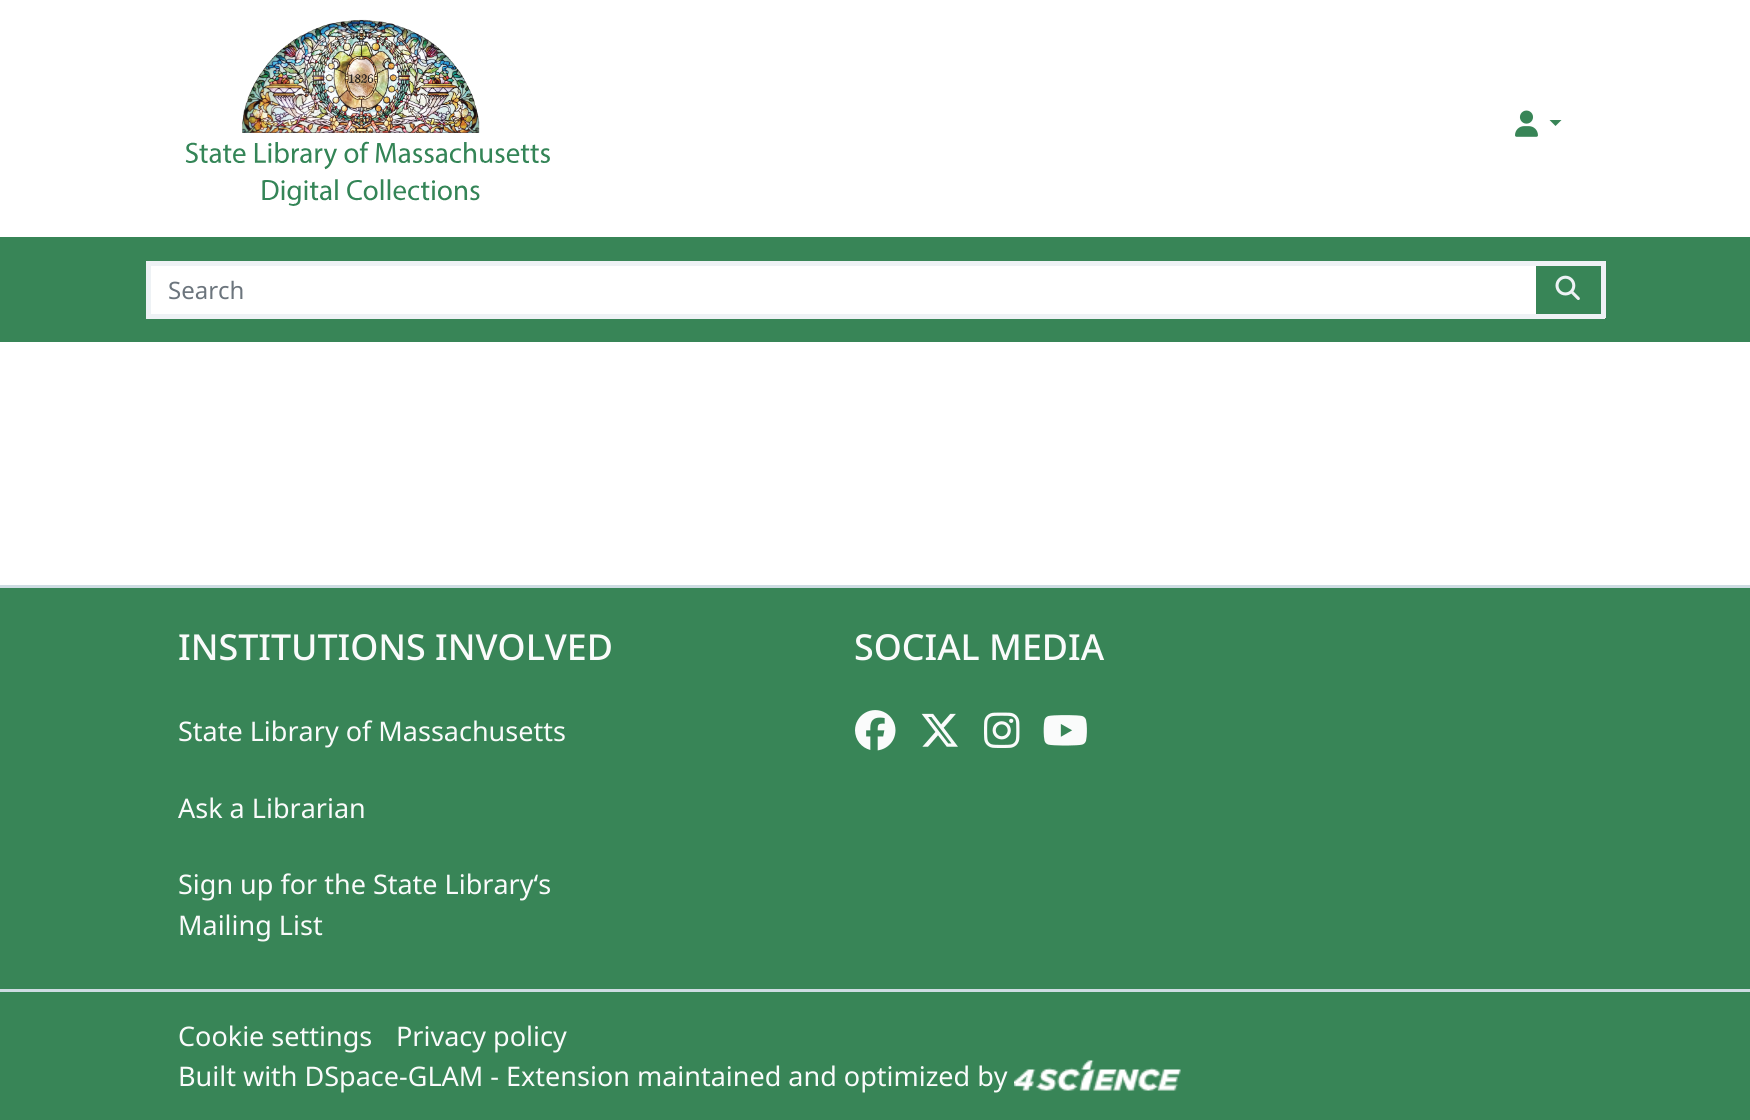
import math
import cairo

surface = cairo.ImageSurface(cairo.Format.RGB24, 1750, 1120)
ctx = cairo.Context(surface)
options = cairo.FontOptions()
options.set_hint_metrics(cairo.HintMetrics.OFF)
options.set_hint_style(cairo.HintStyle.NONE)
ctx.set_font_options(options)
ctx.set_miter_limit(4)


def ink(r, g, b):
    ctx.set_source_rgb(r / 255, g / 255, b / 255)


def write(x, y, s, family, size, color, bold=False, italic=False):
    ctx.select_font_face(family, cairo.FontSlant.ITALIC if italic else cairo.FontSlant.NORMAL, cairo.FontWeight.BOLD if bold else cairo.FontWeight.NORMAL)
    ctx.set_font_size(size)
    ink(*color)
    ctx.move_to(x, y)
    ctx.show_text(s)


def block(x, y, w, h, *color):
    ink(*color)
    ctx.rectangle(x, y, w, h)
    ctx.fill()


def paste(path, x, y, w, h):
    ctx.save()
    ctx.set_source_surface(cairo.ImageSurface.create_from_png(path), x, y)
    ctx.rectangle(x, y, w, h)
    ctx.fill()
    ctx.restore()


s1 = dict(family="Noto Sans", size=24, color=(108, 117, 125))
s2 = dict(family="Noto Sans Medium", size=35.8, color=(250, 251, 251))
s3 = dict(family="Noto Sans", size=27, color=(250, 251, 251))

ink(255, 255, 255)
ctx.paint()
paste("pic1.png", 185, 19, 365, 187)
paste("pic2.png", 1515, 110, 23, 27)
ink(56, 133, 87)
ctx.new_path()
ctx.move_to(1549.5, 120)
ctx.line_to(1561.5, 120)
ctx.line_to(1555.5, 126)
ctx.close_path()
ctx.fill()
block(0, 237, 1750, 105, 56, 133, 87)
block(151, 266, 1385, 48, 255, 255, 255)
block(146, 261, 1459, 5, 238, 242, 245)
block(146, 314, 1390, 5, 238, 242, 245)
block(146, 261, 5, 57, 238, 242, 245)
write(168, 299, "Search", **s1)
block(1601, 261, 5, 57, 238, 242, 245)
block(1535, 314, 70, 5, 238, 242, 245)
paste("pic3.png", 1555, 275, 25, 25)
block(0, 588, 1750, 532, 56, 133, 87)
block(0, 585, 1750, 3, 205, 220, 226)
block(0, 989, 1750, 3, 205, 220, 226)
write(178, 660, "INSTITUTIONS INVOLVED", **s2)
write(178, 741, "State Library of Massachusetts", **s3)
write(178, 818, "Ask a Librarian", **s3)
write(178, 894, "Sign up for the State Library‘s", **s3)
write(178, 935, "Mailing List", **s3)
write(854, 660, "SOCIAL MEDIA", **s2)
paste("pic4.png", 855, 710, 41, 41)
paste("pic5.png", 921, 713, 37, 34)
paste("pic6.png", 984, 712, 36, 36)
paste("pic7.png", 1043, 715, 44, 31)
write(178, 1046, "Cookie settings", **s3)
write(396, 1046, "Privacy policy", **s3)
write(178, 1086, "Built with DSpace-GLAM - Extension maintained and optimized by", **s3)
paste("pic8.png", 1014, 1060, 167, 31)
surface.write_to_png("screenshot.png")
